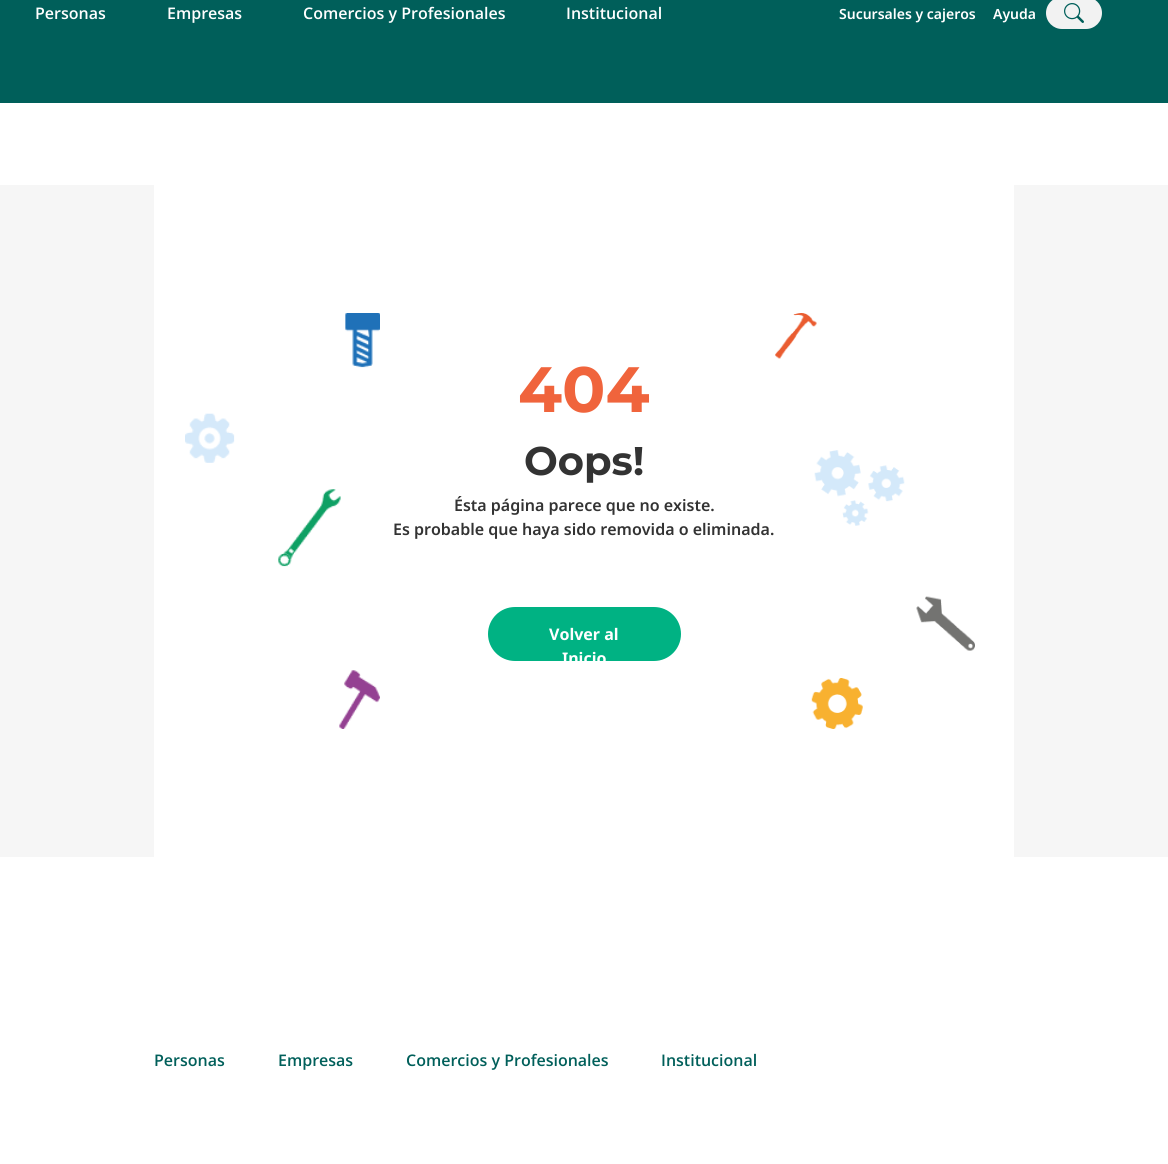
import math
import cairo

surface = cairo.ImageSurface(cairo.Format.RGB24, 1168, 1164)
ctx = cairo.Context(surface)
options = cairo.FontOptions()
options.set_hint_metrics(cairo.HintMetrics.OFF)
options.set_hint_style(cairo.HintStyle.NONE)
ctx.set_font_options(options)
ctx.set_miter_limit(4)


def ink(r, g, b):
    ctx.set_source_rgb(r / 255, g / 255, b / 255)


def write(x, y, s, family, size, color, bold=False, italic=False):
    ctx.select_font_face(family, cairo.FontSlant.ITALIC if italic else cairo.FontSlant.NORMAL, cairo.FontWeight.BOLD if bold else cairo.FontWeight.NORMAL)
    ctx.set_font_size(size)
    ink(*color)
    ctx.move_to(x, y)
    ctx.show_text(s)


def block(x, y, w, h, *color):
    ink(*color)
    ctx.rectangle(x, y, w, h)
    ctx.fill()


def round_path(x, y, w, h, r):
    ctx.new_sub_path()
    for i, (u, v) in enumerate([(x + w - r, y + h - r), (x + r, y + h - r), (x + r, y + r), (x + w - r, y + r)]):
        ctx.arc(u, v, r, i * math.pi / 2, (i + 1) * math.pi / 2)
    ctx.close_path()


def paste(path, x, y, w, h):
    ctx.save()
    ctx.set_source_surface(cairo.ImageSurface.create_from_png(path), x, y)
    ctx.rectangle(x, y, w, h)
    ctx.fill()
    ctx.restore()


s1 = dict(family="Open Sans SemiBold", size=16, color=(255, 255, 255))
s2 = dict(family="Noto Sans SemiBold", size=14, color=(255, 255, 255))
s3 = dict(family="Montserrat", size=64, color=(240, 100, 60), bold=True)
s4 = dict(family="Montserrat", size=40, color=(51, 51, 51), bold=True)
s5 = dict(family="Noto Sans SemiBold", size=16, color=(51, 51, 51))
s6 = dict(family="Noto Sans", size=16, color=(255, 255, 255), bold=True)
s7 = dict(family="Open Sans SemiBold", size=16, color=(0, 95, 90))

ink(255, 255, 255)
ctx.paint()
block(0, 0, 1168, 103, 0, 95, 90)
write(35, 19, "Personas", **s1)
write(167, 19, "Empresas", **s1)
write(303, 19, "Comercios y Profesionales", **s1)
write(566, 19, "Institucional", **s1)
write(839, 19, "Sucursales y cajeros", **s2)
write(993, 19, "Ayuda", **s2)
ink(242, 242, 242)
round_path(1046, -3, 56, 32, 16)
ctx.fill()
paste("pic1.png", 1064, 3, 20, 20)
block(0, 185, 1168, 672, 246, 246, 246)
block(154, 185, 860, 672, 255, 255, 255)
paste("pic2.png", 185, 313, 195, 416)
write(518, 412, "404", **s3)
write(524, 475, "Oops!", **s4)
write(454, 511, "Ésta página parece que no existe.", **s5)
write(393, 535, "Es probable que haya sido removida o eliminada.", **s5)
ink(0, 178, 131)
round_path(488, 607, 193, 54, 27)
ctx.fill()
write(549, 640, "Volver al", **s6)
write(562, 664, "Inicio", **s6)
paste("pic3.png", 775, 313, 200, 416)
write(154, 1066, "Personas", **s7)
write(278, 1066, "Empresas", **s7)
write(406, 1066, "Comercios y Profesionales", **s7)
write(661, 1066, "Institucional", **s7)
surface.write_to_png("screenshot.png")
